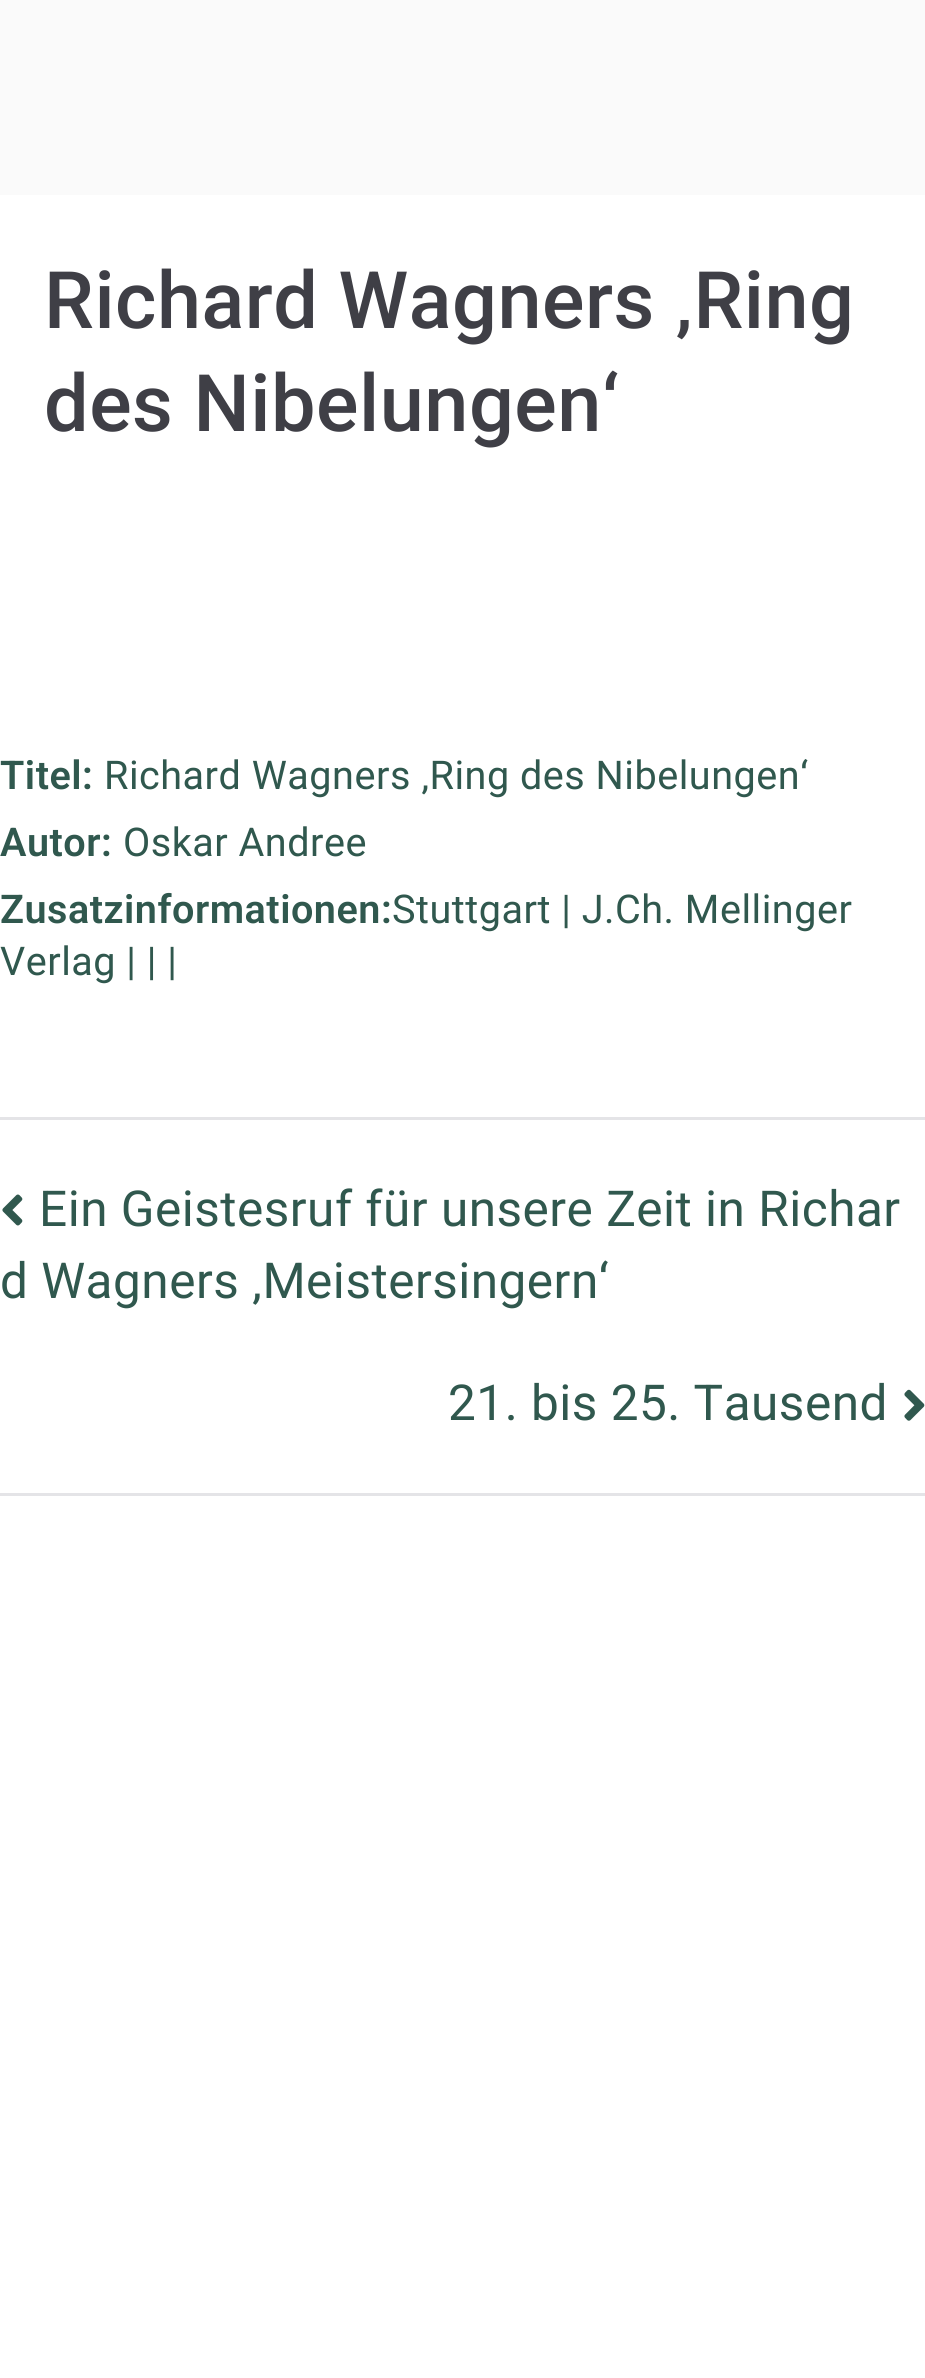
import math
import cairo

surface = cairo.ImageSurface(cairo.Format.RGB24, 925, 2378)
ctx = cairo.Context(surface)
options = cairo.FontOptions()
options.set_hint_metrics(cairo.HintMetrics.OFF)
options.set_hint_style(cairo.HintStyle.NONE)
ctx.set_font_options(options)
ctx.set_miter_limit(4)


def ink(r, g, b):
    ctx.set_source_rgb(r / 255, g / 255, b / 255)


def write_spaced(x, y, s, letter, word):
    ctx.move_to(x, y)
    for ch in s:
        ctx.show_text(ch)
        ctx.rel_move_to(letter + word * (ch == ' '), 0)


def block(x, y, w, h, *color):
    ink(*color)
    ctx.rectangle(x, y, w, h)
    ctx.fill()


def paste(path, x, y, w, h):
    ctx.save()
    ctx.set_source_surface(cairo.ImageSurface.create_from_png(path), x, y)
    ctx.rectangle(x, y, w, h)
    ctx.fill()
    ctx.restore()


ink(250, 250, 250)
ctx.paint()
block(0, 195, 925, 2183, 255, 255, 255)
ctx.select_font_face("Roboto Medium")
ctx.set_font_size(79.25)
ink(63, 63, 70)
write_spaced(44, 328, "Richard Wagners ‚Ring", 0.5, 0)
write_spaced(44, 431, "des Nibelungen‘", 0.5, 0)
ctx.select_font_face("Roboto SemiBold")
ctx.set_font_size(39.6)
ink(48, 88, 78)
write_spaced(0, 789, "Titel:", 0.5, 0)
ctx.select_font_face("Roboto")
write_spaced(104, 789, "Richard Wagners ‚Ring des Nibelungen‘", 0.5, 0)
ctx.select_font_face("Roboto SemiBold")
write_spaced(0, 856, "Autor:", 0.5, 0)
ctx.select_font_face("Roboto")
write_spaced(123, 856, "Oskar Andree", 0.5, 0)
ctx.select_font_face("Roboto SemiBold")
write_spaced(0, 923, "Zusatzinformationen:", 0.5, 0)
ctx.select_font_face("Roboto")
write_spaced(392, 923, "Stuttgart | J.Ch. Mellinger", 0.5, 0)
write_spaced(0, 975, "Verlag | | |", 0.5, 0)
block(0, 1117, 925, 3, 228, 228, 231)
block(0, 1493, 925, 3, 228, 228, 231)
paste("pic1.png", 2, 1194, 21, 32)
ctx.set_font_size(49.5)
ink(48, 88, 78)
write_spaced(39, 1226, "Ein Geistesruf für unsere Zeit in Richar", 0.5, 0)
write_spaced(0, 1298, "d Wagners ‚Meistersingern‘", 0.5, 0)
write_spaced(448, 1420, "21. bis 25. Tausend", 0.5, 0)
paste("pic2.png", 904, 1389, 21, 32)
surface.write_to_png("screenshot.png")
